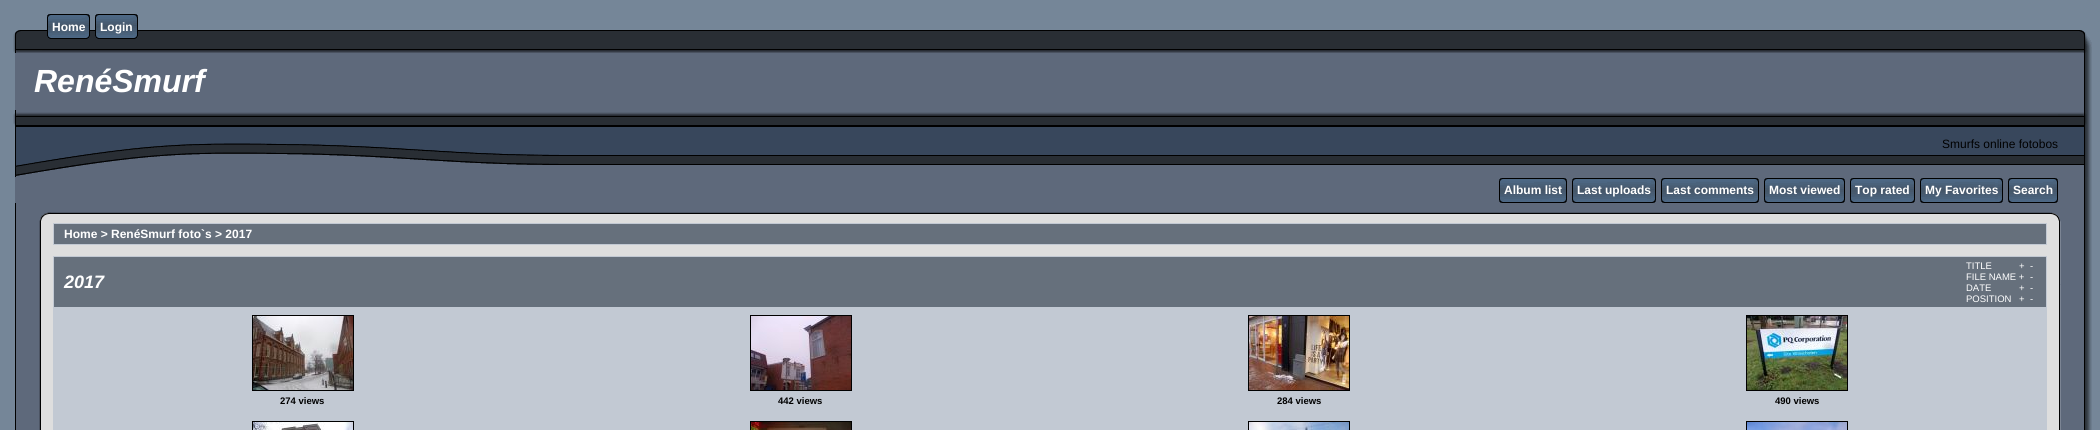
import math
import cairo

surface = cairo.ImageSurface(cairo.Format.RGB24, 2100, 430)
ctx = cairo.Context(surface)
options = cairo.FontOptions()
options.set_hint_metrics(cairo.HintMetrics.OFF)
options.set_hint_style(cairo.HintStyle.NONE)
ctx.set_font_options(options)
ctx.set_miter_limit(4)


def ink(r, g, b):
    ctx.set_source_rgb(r / 255, g / 255, b / 255)


def write(x, y, s, family, size, color, bold=False, italic=False):
    ctx.select_font_face(family, cairo.FontSlant.ITALIC if italic else cairo.FontSlant.NORMAL, cairo.FontWeight.BOLD if bold else cairo.FontWeight.NORMAL)
    ctx.set_font_size(size)
    ink(*color)
    ctx.move_to(x, y)
    ctx.show_text(s)


def block(x, y, w, h, *color):
    ink(*color)
    ctx.rectangle(x, y, w, h)
    ctx.fill()


def paste(path, x, y, w, h):
    ctx.save()
    ctx.set_source_surface(cairo.ImageSurface.create_from_png(path), x, y)
    ctx.rectangle(x, y, w, h)
    ctx.fill()
    ctx.restore()


s1 = dict(family="Liberation Sans", size=12, color=(255, 255, 255), bold=True)
s2 = dict(family="Liberation Sans", size=32, color=(255, 255, 255), bold=True, italic=True)
s3 = dict(family="Liberation Sans", size=12, color=(0, 0, 0))
s4 = dict(family="Liberation Sans", size=18, color=(255, 255, 255), bold=True, italic=True)
s5 = dict(family="Liberation Sans", size=9.5, color=(255, 255, 255))
s6 = dict(family="Liberation Sans", size=9.5, color=(0, 0, 0), bold=True)

ink(117, 134, 152)
ctx.paint()
paste("pic1.png", 42, 30, 2016, 23)
paste("pic2.png", 47, 14, 5, 25)
paste("pic3.png", 52, 14, 33, 25)
write(52, 31, "Home", **s1)
paste("pic4.png", 85, 14, 5, 25)
paste("pic2.png", 95, 14, 5, 25)
paste("pic5.png", 100, 14, 33, 25)
write(100, 31, "Login", **s1)
paste("pic4.png", 133, 14, 5, 25)
paste("pic6.png", 13, 30, 29, 23)
paste("pic7.png", 2058, 30, 34, 23)
block(15, 53, 2069, 57, 94, 105, 123)
paste("pic8.png", 2084, 53, 8, 57)
write(34, 92, "RenéSmurf", **s2)
paste("pic9.png", 13, 110, 547, 67)
paste("pic10.png", 560, 110, 1498, 67)
write(1942, 148, "Smurfs online fotobos", **s3)
paste("pic11.png", 2058, 110, 34, 67)
block(15, 177, 2043, 26, 94, 105, 123)
paste("pic12.png", 2058, 177, 34, 26)
paste("pic13.png", 1499, 178, 5, 25)
paste("pic14.png", 1504, 178, 58, 25)
write(1504, 194, "Album list", **s1)
paste("pic15.png", 1562, 178, 5, 25)
paste("pic13.png", 1572, 178, 5, 25)
paste("pic16.png", 1577, 178, 74, 25)
write(1577, 194, "Last uploads", **s1)
paste("pic15.png", 1651, 178, 5, 25)
paste("pic13.png", 1661, 178, 5, 25)
paste("pic17.png", 1666, 178, 88, 25)
write(1666, 194, "Last comments", **s1)
paste("pic15.png", 1754, 178, 5, 25)
paste("pic13.png", 1764, 178, 5, 25)
paste("pic18.png", 1769, 178, 71, 25)
write(1769, 194, "Most viewed", **s1)
paste("pic15.png", 1840, 178, 5, 25)
paste("pic13.png", 1850, 178, 5, 25)
paste("pic19.png", 1855, 178, 55, 25)
write(1855, 194, "Top rated", **s1)
paste("pic15.png", 1910, 178, 5, 25)
paste("pic13.png", 1920, 178, 5, 25)
paste("pic20.png", 1925, 178, 73, 25)
write(1925, 194, "My Favorites", **s1)
paste("pic15.png", 1998, 178, 5, 25)
paste("pic13.png", 2008, 178, 5, 25)
paste("pic21.png", 2013, 178, 40, 25)
write(2013, 194, "Search", **s1)
paste("pic15.png", 2053, 178, 5, 25)
paste("pic22.png", 15, 203, 27, 18)
paste("pic23.png", 42, 203, 14, 18)
paste("pic24.png", 56, 203, 1988, 18)
paste("pic25.png", 2044, 203, 14, 18)
paste("pic26.png", 2058, 203, 34, 18)
paste("pic27.png", 15, 221, 27, 209)
block(42, 221, 2016, 209, 222, 222, 222)
block(53, 223, 1994, 22, 194, 201, 211)
block(54, 224, 1992, 20, 102, 112, 124)
write(64, 238, "Home > RenéSmurf foto`s > 2017", **s1)
block(53, 256, 1994, 174, 194, 201, 211)
block(54, 257, 1992, 50, 102, 112, 124)
write(64, 288, "2017", **s4)
write(1966, 269, "TITLE", **s5)
write(2019, 269, "+", **s5)
write(2030, 269, "-", **s5)
write(1966, 280, "FILE NAME +", **s5)
write(2030, 280, "-", **s5)
write(1966, 291, "DATE", **s5)
write(2019, 291, "+", **s5)
write(2030, 291, "-", **s5)
write(1966, 302, "POSITION", **s5)
write(2019, 302, "+", **s5)
write(2030, 302, "-", **s5)
ctx.rectangle(252.5, 315.5, 101, 75)
ink(0, 0, 0)
ctx.set_line_width(1)
ctx.stroke()
paste("pic28.png", 253, 316, 100, 74)
write(280, 404, "274 views", **s6)
ctx.rectangle(750.5, 315.5, 101, 75)
ctx.stroke()
paste("pic29.png", 751, 316, 100, 74)
write(778, 404, "442 views", **s6)
ctx.rectangle(1248.5, 315.5, 101, 75)
ctx.stroke()
paste("pic30.png", 1249, 316, 100, 74)
write(1277, 404, "284 views", **s6)
ctx.rectangle(1746.5, 315.5, 101, 75)
ctx.stroke()
paste("pic31.png", 1747, 316, 100, 74)
write(1775, 404, "490 views", **s6)
ctx.rectangle(252.5, 421.5, 101, 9)
ctx.stroke()
paste("pic32.png", 253, 422, 100, 8)
ctx.rectangle(750.5, 421.5, 101, 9)
ctx.stroke()
paste("pic33.png", 751, 422, 100, 8)
ctx.rectangle(1248.5, 421.5, 101, 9)
ctx.stroke()
paste("pic34.png", 1249, 422, 100, 8)
ctx.rectangle(1746.5, 421.5, 101, 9)
ctx.stroke()
paste("pic35.png", 1747, 422, 100, 8)
paste("pic36.png", 2058, 221, 34, 209)
block(2060, 284, 1, 1, 115, 125, 141)
surface.write_to_png("screenshot.png")
